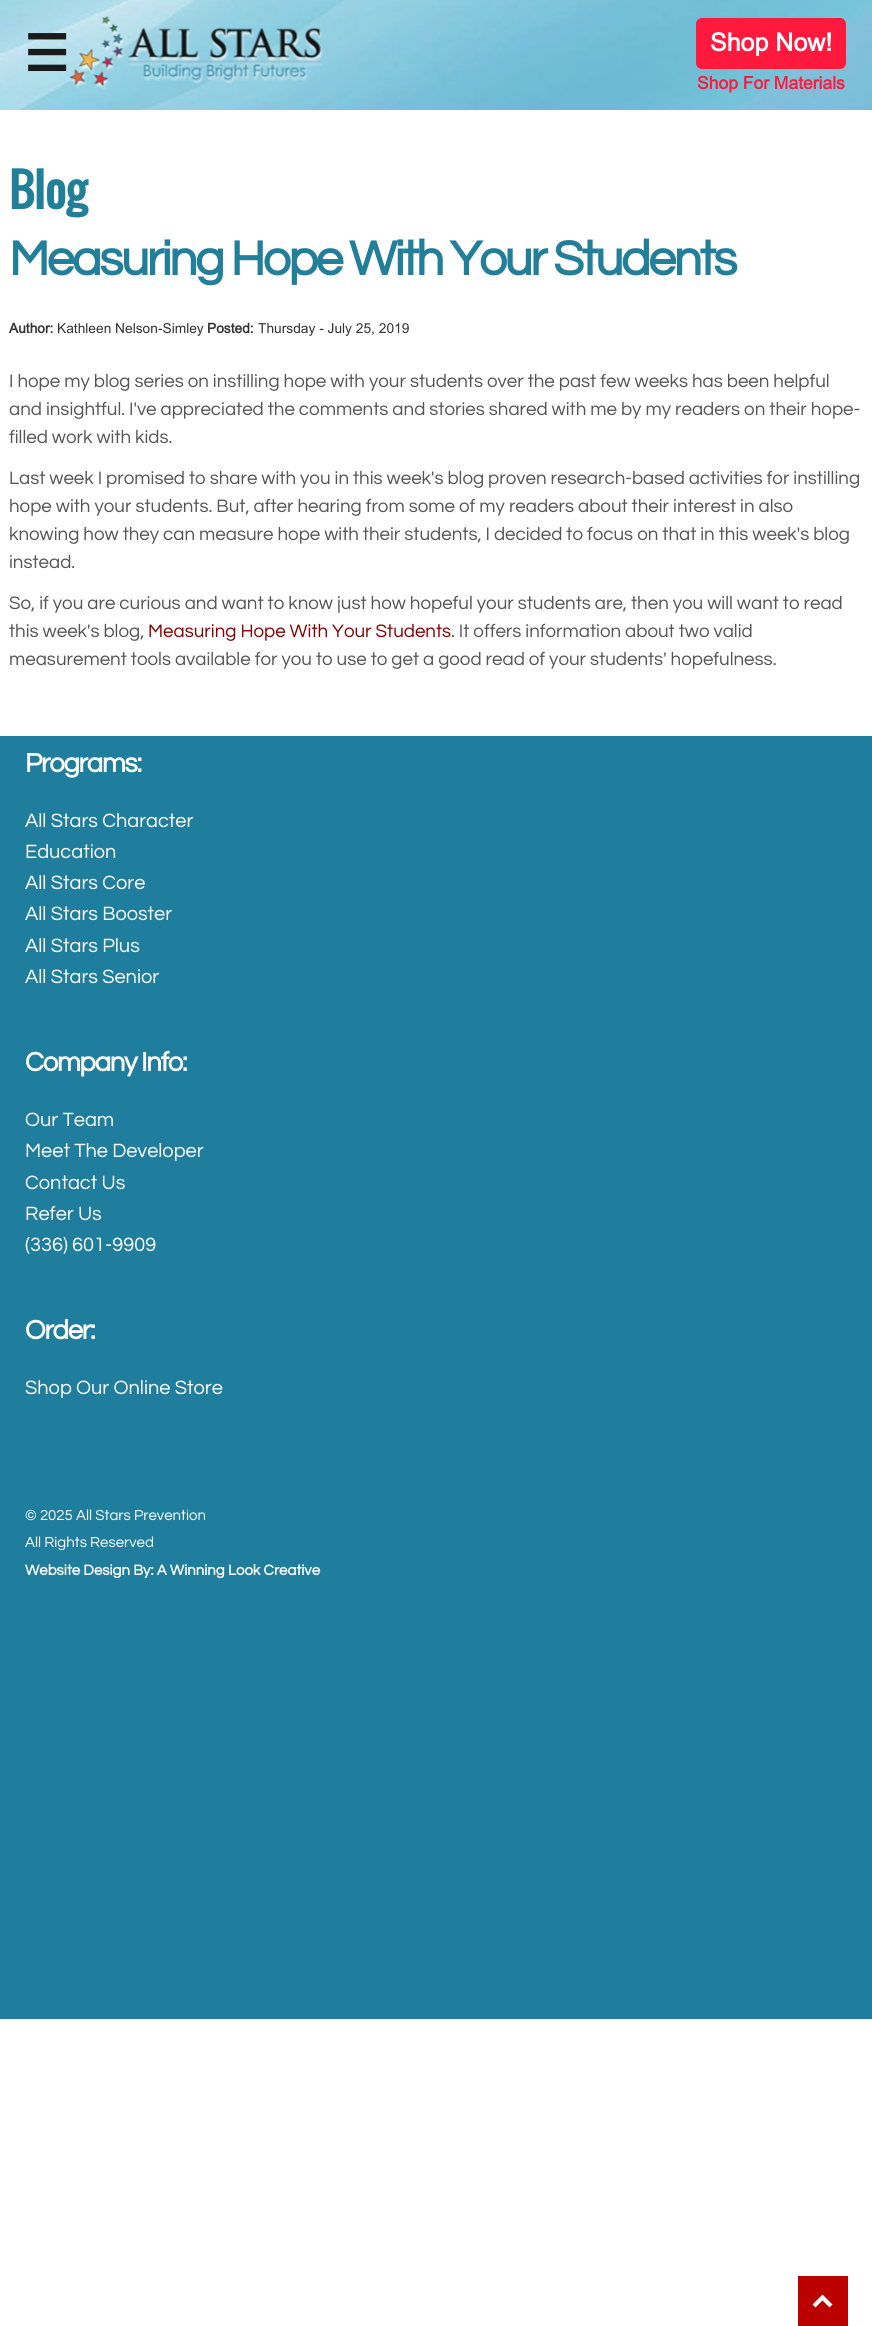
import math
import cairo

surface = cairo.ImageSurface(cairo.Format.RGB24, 872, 2326)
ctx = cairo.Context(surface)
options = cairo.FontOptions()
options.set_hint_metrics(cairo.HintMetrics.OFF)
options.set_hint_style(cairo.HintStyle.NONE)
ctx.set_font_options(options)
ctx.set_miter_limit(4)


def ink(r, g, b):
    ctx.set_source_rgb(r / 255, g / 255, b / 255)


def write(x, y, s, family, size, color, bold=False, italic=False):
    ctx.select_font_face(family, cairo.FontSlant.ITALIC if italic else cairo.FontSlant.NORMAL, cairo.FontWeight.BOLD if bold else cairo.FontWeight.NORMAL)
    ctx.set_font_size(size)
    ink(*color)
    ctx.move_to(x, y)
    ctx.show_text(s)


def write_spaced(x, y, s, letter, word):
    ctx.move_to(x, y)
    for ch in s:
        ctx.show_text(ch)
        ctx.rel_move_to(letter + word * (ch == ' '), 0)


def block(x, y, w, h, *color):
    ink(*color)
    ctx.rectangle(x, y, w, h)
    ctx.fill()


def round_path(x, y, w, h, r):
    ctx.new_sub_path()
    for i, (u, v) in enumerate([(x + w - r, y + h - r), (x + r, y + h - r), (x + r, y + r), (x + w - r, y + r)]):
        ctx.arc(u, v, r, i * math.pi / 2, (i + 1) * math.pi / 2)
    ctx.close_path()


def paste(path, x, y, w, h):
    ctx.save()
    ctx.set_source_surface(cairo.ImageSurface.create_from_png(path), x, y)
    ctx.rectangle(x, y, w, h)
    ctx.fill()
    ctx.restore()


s1 = dict(family="DejaVu Sans", size=50, color=(26, 26, 26), bold=True)
s2 = dict(family="Arial", size=25, color=(255, 255, 255), bold=True)
s3 = dict(family="Arial", size=17.5, color=(255, 26, 61), bold=True)
s4 = dict(family="Oswald", size=45, color=(34, 127, 154), bold=True)
s5 = dict(family="Arial", size=13.75, color=(51, 51, 51), bold=True)
s6 = dict(family="Arial", size=13.75, color=(51, 51, 51))
s7 = dict(family="Questrial", size=18.75, color=(85, 85, 85))
s8 = dict(family="Questrial", size=18.75, color=(136, 0, 0))
s9 = dict(family="Questrial", size=20, color=(255, 255, 255))
s10 = dict(family="Questrial", size=15, color=(255, 255, 255))
s11 = dict(family="Questrial", size=15, color=(255, 255, 255), bold=True)

ink(255, 255, 255)
ctx.paint()
paste("pic1.png", 0, 0, 872, 110)
write(24, 71, "☰", **s1)
paste("pic2.png", 69, 16, 254, 74)
ink(255, 26, 61)
round_path(696.5, 18.5, 149, 50, 5.5)
ctx.fill_preserve()
ctx.set_line_width(1)
ctx.stroke()
write(710, 51, "Shop Now!", **s2)
write(697, 89, "Shop For Materials", **s3)
write(9, 209, "Blog", **s4)
ctx.select_font_face("Questrial", cairo.FontSlant.NORMAL, cairo.FontWeight.BOLD)
ctx.set_font_size(50)
write_spaced(9, 275, "Measuring Hope With Your Students", -2.5, 0)
write(9, 333, "Author:", **s5)
write(57, 333, "Kathleen Nelson-Simley", **s6)
write(207, 333, "Posted:", **s5)
write(258, 333, "Thursday - July 25, 2019", **s6)
write(9, 387, "I hope my blog series on instilling hope with your students over the past few weeks has been helpful", **s7)
write(9, 415, "and insightful. I've appreciated the comments and stories shared with me by my readers on their hope-", **s7)
write(9, 443, "filled work with kids.", **s7)
write(9, 484, "Last week I promised to share with you in this week's blog proven research-based activities for instilling", **s7)
write(9, 512, "hope with your students. But, after hearing from some of my readers about their interest in also", **s7)
write(9, 540, "knowing how they can measure hope with their students, I decided to focus on that in this week's blog", **s7)
write(9, 568, "instead.", **s7)
write(9, 609, "So, if you are curious and want to know just how hopeful your students are, then you will want to read", **s7)
write(9, 637, "this week's blog,", **s7)
write(148, 637, "Measuring Hope With Your Students", **s8)
write(451, 637, ". It offers information about two valid", **s7)
write(9, 665, "measurement tools available for you to use to get a good read of your students' hopefulness.", **s7)
block(0, 736, 872, 1283, 31, 125, 158)
ctx.select_font_face("Questrial", cairo.FontSlant.NORMAL, cairo.FontWeight.BOLD)
ctx.set_font_size(27.5)
ink(255, 255, 255)
write_spaced(25, 772, "Programs:", -1.25, 0)
write(25, 827, "All Stars Character", **s9)
write(25, 858, "Education", **s9)
write(25, 889, "All Stars Core", **s9)
write(25, 920, "All Stars Booster", **s9)
write(25, 952, "All Stars Plus", **s9)
write(25, 983, "All Stars Senior", **s9)
ctx.select_font_face("Questrial", cairo.FontSlant.NORMAL, cairo.FontWeight.BOLD)
ctx.set_font_size(27.5)
write_spaced(25, 1071, "Company Info:", -1.25, 0)
write(25, 1126, "Our Team", **s9)
write(25, 1157, "Meet The Developer", **s9)
write(25, 1189, "Contact Us", **s9)
write(25, 1220, "Refer Us", **s9)
write(25, 1251, "(336) 601-9909", **s9)
ctx.select_font_face("Questrial", cairo.FontSlant.NORMAL, cairo.FontWeight.BOLD)
ctx.set_font_size(27.5)
write_spaced(25, 1339, "Order:", -1.25, 0)
write(25, 1394, "Shop Our Online Store", **s9)
write(25, 1520, "© 2025 All Stars Prevention", **s10)
write(25, 1547, "All Rights Reserved", **s10)
write(25, 1575, "Website Design By: A Winning Look Creative", **s11)
block(798, 2276, 50, 50, 187, 0, 0)
ink(255, 255, 255)
ctx.new_path()
ctx.move_to(822.5, 2294.5)
ctx.line_to(832.5, 2304.5)
ctx.line_to(829.5, 2307.5)
ctx.line_to(822.5, 2300.5)
ctx.line_to(815.5, 2307.5)
ctx.line_to(812.5, 2304.5)
ctx.close_path()
ctx.fill()
surface.write_to_png("screenshot.png")
